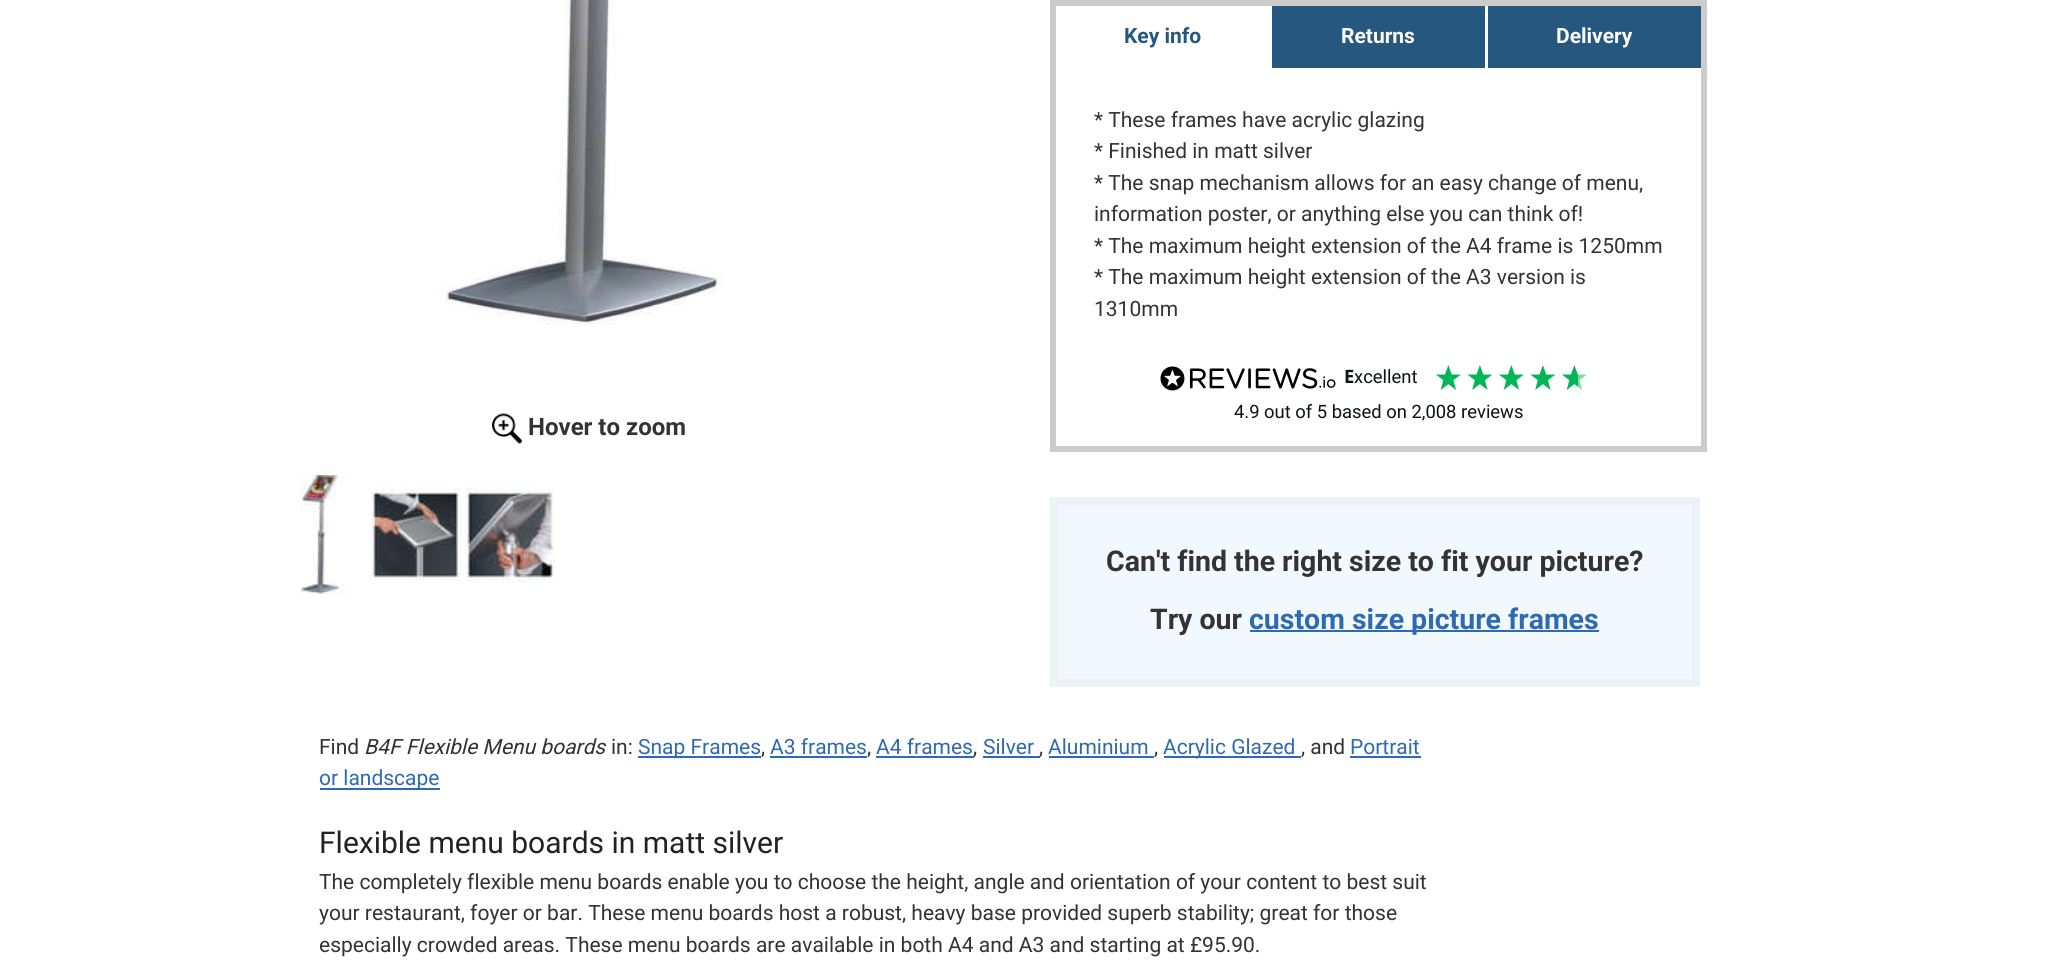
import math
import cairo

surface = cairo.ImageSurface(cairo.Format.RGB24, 2054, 961)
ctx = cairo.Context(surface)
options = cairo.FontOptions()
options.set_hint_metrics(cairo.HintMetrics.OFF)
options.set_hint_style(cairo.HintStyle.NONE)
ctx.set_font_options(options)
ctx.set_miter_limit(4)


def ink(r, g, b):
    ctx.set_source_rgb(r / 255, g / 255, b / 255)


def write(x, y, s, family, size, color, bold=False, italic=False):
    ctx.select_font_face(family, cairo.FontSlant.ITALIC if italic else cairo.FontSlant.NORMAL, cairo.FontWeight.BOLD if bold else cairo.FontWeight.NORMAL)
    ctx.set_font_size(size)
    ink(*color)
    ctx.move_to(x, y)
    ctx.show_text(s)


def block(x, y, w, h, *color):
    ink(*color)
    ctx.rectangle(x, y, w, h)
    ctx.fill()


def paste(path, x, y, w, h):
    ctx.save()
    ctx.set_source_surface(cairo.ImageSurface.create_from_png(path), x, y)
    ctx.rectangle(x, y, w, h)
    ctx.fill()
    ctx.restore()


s1 = dict(family="Roboto", size=24, color=(51, 51, 51), bold=True)
s2 = dict(family="Roboto", size=21, color=(37, 87, 127), bold=True)
s3 = dict(family="Roboto", size=21, color=(255, 255, 255), bold=True)
s4 = dict(family="Roboto", size=21, color=(51, 51, 51))
s5 = dict(family="Noto Sans", size=18.4, color=(14, 19, 17), bold=True)
s6 = dict(family="Roboto", size=18.4, color=(14, 19, 17))
s7 = dict(family="Roboto", size=28.5, color=(51, 51, 51), bold=True)
s8 = dict(family="Roboto", size=28.5, color=(46, 106, 177), bold=True)
s9 = dict(family="Roboto", size=21, color=(51, 51, 51), italic=True)
s10 = dict(family="Roboto", size=21, color=(46, 106, 177))
s11 = dict(family="Roboto", size=30, color=(34, 34, 34))

ink(255, 255, 255)
ctx.paint()
paste("pic1.png", 439, 0, 286, 326)
paste("pic2.png", 492, 413, 30, 31)
write(528, 435, "Hover to zoom", **s1)
paste("pic3.png", 300, 475, 48, 120)
paste("pic4.png", 370, 487, 91, 96)
paste("pic5.png", 465, 487, 90, 96)
ctx.rectangle(1053, 3, 651, 446)
ink(204, 204, 204)
ctx.set_line_width(6)
ctx.stroke()
write(1124, 43, "Key info", **s2)
block(1272, 6, 213, 62, 37, 87, 127)
write(1341, 43, "Returns", **s3)
block(1488, 6, 213, 62, 37, 87, 127)
write(1556, 43, "Delivery", **s3)
write(1094, 127, "* These frames have acrylic glazing", **s4)
write(1094, 158, "* Finished in matt silver", **s4)
write(1094, 190, "* The snap mechanism allows for an easy change of menu,", **s4)
write(1094, 221, "information poster, or anything else you can think of!", **s4)
write(1094, 253, "* The maximum height extension of the A4 frame is 1250mm", **s4)
write(1094, 284, "* The maximum height extension of the A3 version is", **s4)
write(1094, 316, "1310mm", **s4)
paste("pic6.png", 1160, 366, 176, 25)
write(1344, 383, "E", **s5)
write(1354, 383, "xcellent", **s6)
paste("pic7.png", 1436, 365, 25, 25)
paste("pic8.png", 1467, 365, 26, 25)
paste("pic7.png", 1499, 365, 25, 25)
paste("pic8.png", 1530, 365, 26, 25)
paste("pic9.png", 1562, 365, 25, 25)
write(1234, 418, "4.9 out of 5 based on 2,008 reviews", **s6)
ink(241, 249, 254)
ctx.rectangle(1054, 501, 642, 182)
ctx.fill_preserve()
ink(235, 243, 247)
ctx.set_line_width(8)
ctx.stroke()
write(1106, 571, "Can't find the right size to fit your picture?", **s7)
write(1150, 629, "Try our", **s7)
block(1250, 630, 349, 2, 46, 106, 177)
write(1249, 629, "custom size picture frames", **s8)
write(319, 754, "Find", **s4)
write(364, 754, "B4F Flexible Menu boards", **s9)
write(611, 754, "in:", **s4)
block(638, 756, 123, 2, 46, 106, 177)
write(638, 754, "Snap Frames", **s10)
write(761, 754, ",", **s4)
write(770, 754, "A3 frames", **s10)
block(770, 756, 97, 2, 46, 106, 177)
write(867, 754, ",", **s4)
write(876, 754, "A4 frames", **s10)
block(876, 756, 98, 2, 46, 106, 177)
write(973, 754, ",", **s4)
write(983, 754, "Silver", **s10)
block(983, 756, 57, 2, 46, 106, 177)
write(1039, 754, ",", **s4)
write(1048, 754, "Aluminium", **s10)
block(1049, 756, 105, 2, 46, 106, 177)
write(1154, 754, ",", **s4)
block(1164, 756, 137, 2, 46, 106, 177)
write(1163, 754, "Acrylic Glazed", **s10)
write(1301, 754, ", and", **s4)
write(1350, 754, "Portrait", **s10)
block(1350, 756, 71, 2, 46, 106, 177)
block(320, 788, 120, 2, 46, 106, 177)
write(319, 785, "or landscape", **s10)
write(319, 853, "Flexible menu boards in matt silver", **s11)
write(319, 889, "The completely flexible menu boards enable you to choose the height, angle and orientation of your content to best suit", **s4)
write(319, 920, "your restaurant, foyer or bar. These menu boards host a robust, heavy base provided superb stability; great for those", **s4)
write(319, 952, "especially crowded areas. These menu boards are available in both A4 and A3 and starting at £95.90.", **s4)
surface.write_to_png("screenshot.png")
